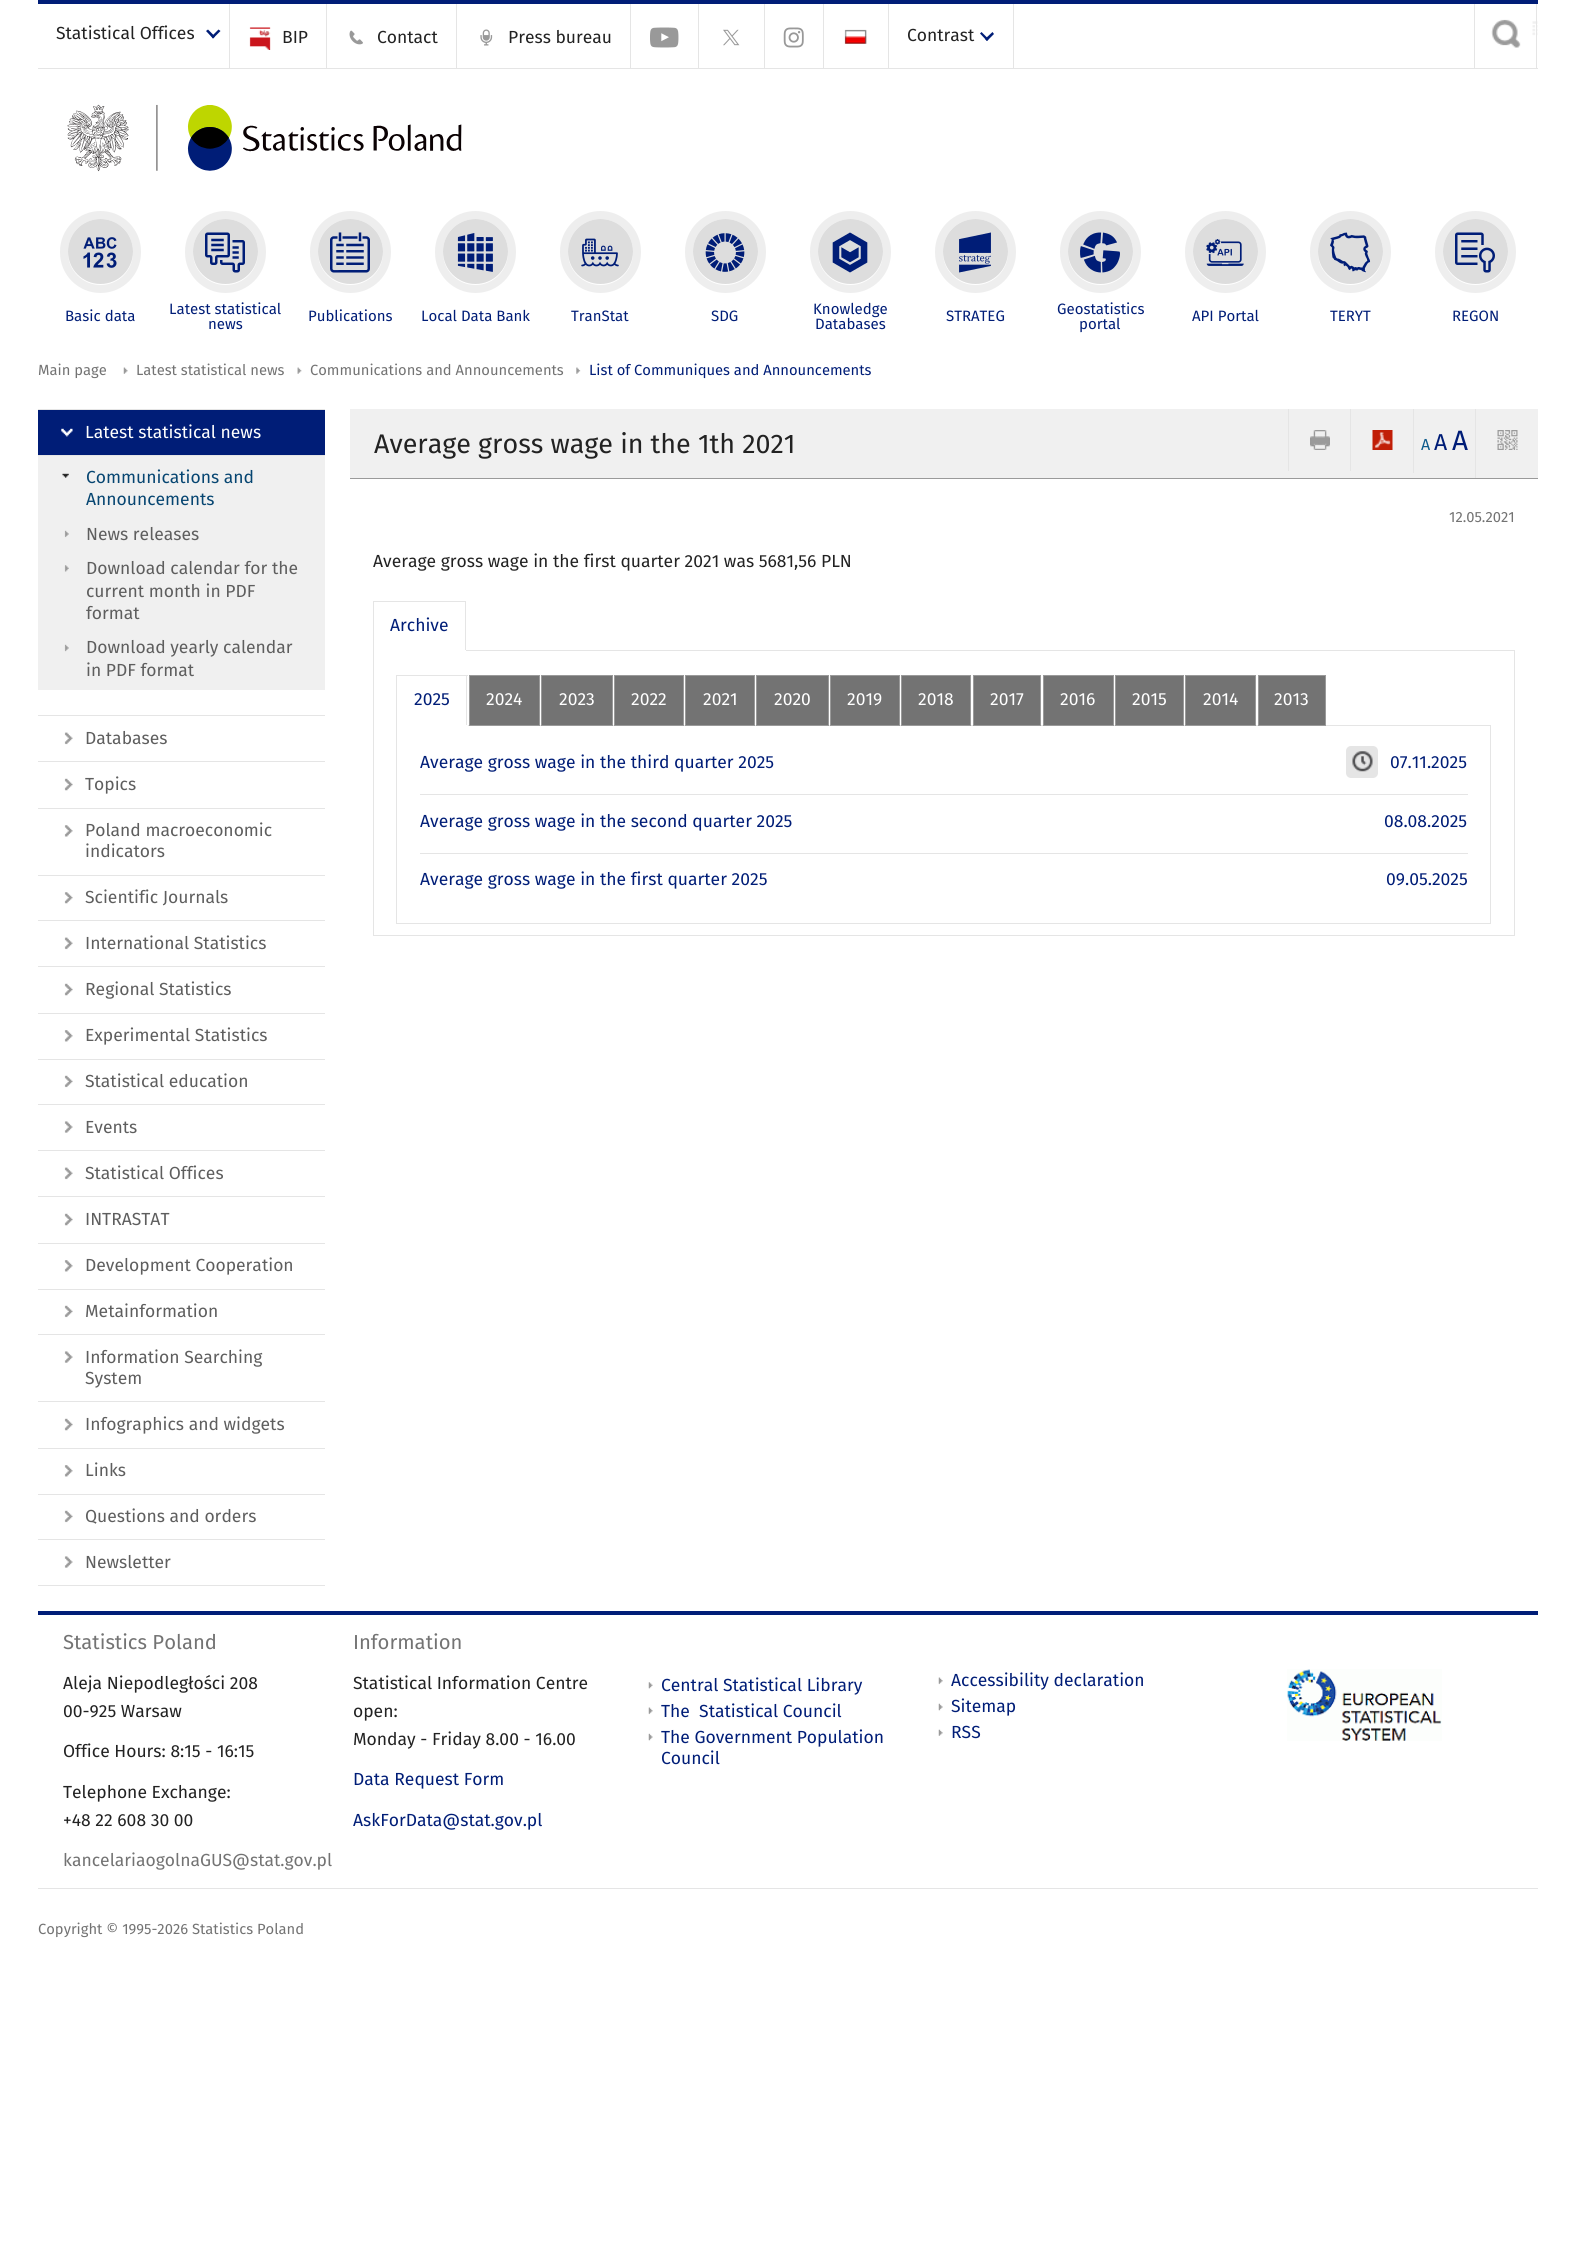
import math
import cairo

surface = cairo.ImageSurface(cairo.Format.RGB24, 1575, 2251)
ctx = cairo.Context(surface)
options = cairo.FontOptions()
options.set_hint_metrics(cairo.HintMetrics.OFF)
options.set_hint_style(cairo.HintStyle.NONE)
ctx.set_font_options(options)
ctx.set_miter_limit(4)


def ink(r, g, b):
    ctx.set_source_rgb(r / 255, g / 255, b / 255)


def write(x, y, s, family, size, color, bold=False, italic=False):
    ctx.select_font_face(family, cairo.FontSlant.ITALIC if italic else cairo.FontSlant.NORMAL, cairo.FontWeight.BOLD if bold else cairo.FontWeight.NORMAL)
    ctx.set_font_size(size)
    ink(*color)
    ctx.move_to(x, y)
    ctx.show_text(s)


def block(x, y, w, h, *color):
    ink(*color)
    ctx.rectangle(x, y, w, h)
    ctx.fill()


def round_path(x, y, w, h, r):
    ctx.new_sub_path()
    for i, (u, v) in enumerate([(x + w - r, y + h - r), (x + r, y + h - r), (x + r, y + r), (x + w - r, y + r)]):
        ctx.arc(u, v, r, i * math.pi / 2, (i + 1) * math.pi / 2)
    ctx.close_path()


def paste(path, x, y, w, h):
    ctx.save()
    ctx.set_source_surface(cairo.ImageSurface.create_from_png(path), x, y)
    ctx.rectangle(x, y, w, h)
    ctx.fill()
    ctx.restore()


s1 = dict(family="Fira Sans", size=17.5, color=(34, 34, 34))
s2 = dict(family="Fira Sans", size=15, color=(0, 29, 119))
s3 = dict(family="Fira Sans", size=14.75, color=(115, 115, 115))
s4 = dict(family="Fira Sans", size=14.75, color=(0, 29, 119))
s5 = dict(family="Fira Sans", size=17.5, color=(255, 255, 255))
s6 = dict(family="Fira Sans", size=17.5, color=(6, 69, 113))
s7 = dict(family="Fira Sans", size=17.5, color=(94, 94, 94))
s8 = dict(family="Fira Sans", size=26.9, color=(34, 34, 34))
s9 = dict(family="Fira Sans", size=16, color=(15, 92, 141))
s10 = dict(family="Fira Sans", size=23, color=(0, 29, 119))
s11 = dict(family="Fira Sans", size=28, color=(0, 29, 119))
s12 = dict(family="Fira Sans", size=17.5, color=(0, 29, 119))
s13 = dict(family="Fira Sans", size=20.25, color=(115, 115, 115))
s14 = dict(family="Fira Sans", size=17.5, color=(115, 115, 115))

ink(255, 255, 255)
ctx.paint()
block(38, 0, 1500, 4, 0, 29, 119)
block(38, 68, 1500, 1, 229, 229, 229)
block(229, 4, 1, 64, 229, 229, 229)
write(56, 39, "Statistical Offices", **s1)
ink(0, 29, 119)
ctx.new_path()
ctx.move_to(218.5, 29.5)
ctx.line_to(220.5, 31)
ctx.line_to(213, 38.5)
ctx.line_to(211.5, 36.5)
ctx.close_path()
ctx.fill()
ctx.new_path()
ctx.move_to(208, 29.5)
ctx.line_to(215, 36.5)
ctx.line_to(213, 38.5)
ctx.line_to(206, 31)
ctx.close_path()
ctx.fill()
block(326, 4, 1, 64, 229, 229, 229)
paste("pic1.png", 249, 27, 22, 23)
write(282, 43, "BIP", **s1)
block(456, 4, 1, 64, 229, 229, 229)
paste("pic2.png", 349, 30, 14, 15)
write(377, 43, "Contact", **s1)
block(630, 4, 1, 64, 229, 229, 229)
paste("pic3.png", 480, 29, 13, 17)
write(508, 43, "Press bureau", **s1)
block(698, 4, 1, 64, 229, 229, 229)
paste("pic4.png", 650, 27, 29, 21)
block(764, 4, 1, 64, 229, 229, 229)
paste("pic5.png", 723, 29, 17, 17)
block(823, 4, 1, 64, 229, 229, 229)
paste("pic6.png", 783, 27, 21, 21)
block(888, 4, 1, 64, 229, 229, 229)
paste("pic7.png", 844, 29, 23, 15)
block(1013, 4, 1, 64, 229, 229, 229)
write(907, 41, "Contrast", **s1)
ink(0, 29, 119)
ctx.new_path()
ctx.move_to(992.5, 32)
ctx.line_to(994, 34)
ctx.line_to(987, 41)
ctx.line_to(985, 39)
ctx.close_path()
ctx.fill()
ctx.new_path()
ctx.move_to(981.5, 32)
ctx.line_to(988.5, 39)
ctx.line_to(987, 41)
ctx.line_to(980, 33.5)
ctx.close_path()
ctx.fill()
paste("pic8.png", 1491, 19, 47, 29)
block(1536, 4, 1, 64, 229, 229, 229)
block(1474, 4, 1, 64, 229, 229, 229)
paste("pic9.png", 67, 104, 395, 68)
round_path(64, 215, 73, 74, 36.5)
ink(238, 238, 238)
ctx.set_line_width(8)
ctx.stroke()
ink(221, 221, 221)
ctx.arc(100.5, 251.5, 32.5, 0, 2 * math.pi)
ctx.fill()
paste("pic10.png", 83, 237, 34, 31)
write(65, 321, "Basic data", **s2)
round_path(189, 215, 73, 74, 36.5)
ink(238, 238, 238)
ctx.stroke()
ink(221, 221, 221)
ctx.arc(225.5, 251.5, 32.5, 0, 2 * math.pi)
ctx.fill()
paste("pic11.png", 205, 232, 40, 41)
write(169, 314, "Latest statistical", **s2)
write(208, 329, "news", **s2)
round_path(314, 215, 73, 74, 36.5)
ink(238, 238, 238)
ctx.stroke()
ink(221, 221, 221)
ctx.arc(350.5, 251.5, 32.5, 0, 2 * math.pi)
ctx.fill()
paste("pic12.png", 330, 232, 40, 41)
write(308, 321, "Publications", **s2)
round_path(439, 215, 73, 74, 36.5)
ink(238, 238, 238)
ctx.stroke()
ink(221, 221, 221)
ctx.arc(475.5, 251.5, 32.5, 0, 2 * math.pi)
ctx.fill()
paste("pic13.png", 457, 233, 36, 39)
write(421, 321, "Local Data Bank", **s2)
round_path(564, 215, 73, 74, 36.5)
ink(238, 238, 238)
ctx.stroke()
ink(221, 221, 221)
ctx.arc(600.5, 251.5, 32.5, 0, 2 * math.pi)
ctx.fill()
paste("pic14.png", 581, 238, 38, 29)
write(571, 321, "TranStat", **s2)
round_path(689, 215, 73, 74, 36.5)
ink(238, 238, 238)
ctx.stroke()
ink(221, 221, 221)
ctx.arc(725.5, 251.5, 32.5, 0, 2 * math.pi)
ctx.fill()
paste("pic15.png", 705, 233, 40, 39)
write(711, 321, "SDG", **s2)
round_path(814, 215, 73, 74, 36.5)
ink(238, 238, 238)
ctx.stroke()
ink(221, 221, 221)
ctx.arc(850.5, 251.5, 32.5, 0, 2 * math.pi)
ctx.fill()
paste("pic16.png", 832, 232, 36, 41)
write(813, 314, "Knowledge", **s2)
write(815, 329, "Databases", **s2)
round_path(939, 215, 73, 74, 36.5)
ink(238, 238, 238)
ctx.stroke()
ink(221, 221, 221)
ctx.arc(975.5, 251.5, 32.5, 0, 2 * math.pi)
ctx.fill()
paste("pic17.png", 959, 232, 32, 41)
write(946, 321, "STRATEG", **s2)
round_path(1064, 215, 73, 74, 36.5)
ink(238, 238, 238)
ctx.stroke()
ink(221, 221, 221)
ctx.arc(1100.5, 251.5, 32.5, 0, 2 * math.pi)
ctx.fill()
paste("pic18.png", 1080, 232, 40, 41)
write(1057, 314, "Geostatistics", **s2)
write(1079, 329, "portal", **s2)
round_path(1189, 215, 73, 74, 36.5)
ink(238, 238, 238)
ctx.stroke()
ink(221, 221, 221)
ctx.arc(1225.5, 251.5, 32.5, 0, 2 * math.pi)
ctx.fill()
paste("pic19.png", 1206, 239, 38, 27)
write(1192, 321, "API Portal", **s2)
round_path(1314, 215, 73, 74, 36.5)
ink(238, 238, 238)
ctx.stroke()
ink(221, 221, 221)
ctx.arc(1350.5, 251.5, 32.5, 0, 2 * math.pi)
ctx.fill()
paste("pic20.png", 1330, 232, 41, 41)
write(1330, 321, "TERYT", **s2)
round_path(1439, 215, 73, 74, 36.5)
ink(238, 238, 238)
ctx.stroke()
ink(221, 221, 221)
ctx.arc(1475.5, 251.5, 32.5, 0, 2 * math.pi)
ctx.fill()
paste("pic21.png", 1455, 232, 40, 41)
write(1452, 321, "REGON", **s2)
write(38, 375, "Main page", **s3)
paste("pic22.png", 123, 367, 5, 7)
write(136, 375, "Latest statistical news", **s3)
paste("pic23.png", 297, 367, 5, 7)
write(310, 375, "Communications and Announcements", **s3)
paste("pic24.png", 576, 367, 5, 7)
write(589, 375, "List of Communiques and Announcements", **s4)
block(38, 410, 287, 45, 0, 29, 119)
paste("pic25.png", 61, 428, 12, 9)
block(38, 409, 287, 1, 229, 229, 229)
block(38, 455, 287, 1, 229, 229, 229)
write(85, 438, "Latest statistical news", **s5)
block(38, 456, 287, 234, 240, 240, 240)
paste("pic26.png", 62, 473, 7, 5)
write(86, 483, "Communications and", **s6)
write(86, 505, "Announcements", **s6)
paste("pic27.png", 64, 530, 5, 8)
write(86, 540, "News releases", **s7)
paste("pic28.png", 64, 565, 5, 7)
write(86, 574, "Download calendar for the", **s7)
write(86, 597, "current month in PDF", **s7)
write(86, 619, "format", **s7)
paste("pic29.png", 64, 644, 5, 8)
write(86, 653, "Download yearly calendar", **s7)
write(86, 676, "in PDF format", **s7)
paste("pic30.png", 64, 732, 9, 13)
block(38, 715, 287, 1, 229, 229, 229)
block(38, 761, 287, 1, 229, 229, 229)
write(85, 744, "Databases", **s7)
paste("pic31.png", 64, 778, 9, 13)
block(38, 808, 287, 1, 229, 229, 229)
write(85, 790, "Topics", **s7)
paste("pic32.png", 64, 825, 9, 12)
block(38, 875, 287, 1, 229, 229, 229)
write(85, 836, "Poland macroeconomic", **s7)
write(85, 857, "indicators", **s7)
paste("pic33.png", 64, 892, 9, 12)
block(38, 920, 287, 1, 229, 229, 229)
write(85, 903, "Scientific Journals", **s7)
paste("pic30.png", 64, 937, 9, 13)
block(38, 966, 287, 1, 229, 229, 229)
write(85, 949, "International Statistics", **s7)
paste("pic31.png", 64, 983, 9, 13)
block(38, 1013, 287, 1, 229, 229, 229)
write(85, 995, "Regional Statistics", **s7)
paste("pic34.png", 64, 1030, 9, 12)
block(38, 1059, 287, 1, 229, 229, 229)
write(85, 1041, "Experimental Statistics", **s7)
paste("pic35.png", 64, 1075, 9, 13)
block(38, 1104, 287, 1, 229, 229, 229)
write(85, 1087, "Statistical education", **s7)
paste("pic36.png", 64, 1121, 9, 12)
block(38, 1150, 287, 1, 229, 229, 229)
write(85, 1133, "Events", **s7)
paste("pic30.png", 64, 1167, 9, 13)
block(38, 1196, 287, 1, 229, 229, 229)
write(85, 1179, "Statistical Offices", **s7)
paste("pic31.png", 64, 1213, 9, 13)
block(38, 1243, 287, 1, 229, 229, 229)
write(85, 1225, "INTRASTAT", **s7)
paste("pic34.png", 64, 1260, 9, 12)
block(38, 1289, 287, 1, 229, 229, 229)
write(85, 1271, "Development Cooperation", **s7)
paste("pic35.png", 64, 1305, 9, 13)
block(38, 1334, 287, 1, 229, 229, 229)
write(85, 1317, "Metainformation", **s7)
paste("pic37.png", 64, 1351, 9, 12)
block(38, 1401, 287, 1, 229, 229, 229)
write(85, 1363, "Information Searching", **s7)
write(85, 1384, "System", **s7)
paste("pic31.png", 64, 1418, 9, 13)
block(38, 1448, 287, 1, 229, 229, 229)
write(85, 1430, "Infographics and widgets", **s7)
paste("pic34.png", 64, 1465, 9, 12)
block(38, 1494, 287, 1, 229, 229, 229)
write(85, 1476, "Links", **s7)
paste("pic35.png", 64, 1510, 9, 13)
block(38, 1539, 287, 1, 229, 229, 229)
write(85, 1522, "Questions and orders", **s7)
paste("pic36.png", 64, 1556, 9, 12)
block(38, 1585, 287, 1, 229, 229, 229)
write(85, 1568, "Newsletter", **s7)
block(350, 409, 1188, 69, 240, 240, 240)
block(350, 478, 1188, 1, 154, 154, 154)
write(374, 453, "Average gross wage in the 1th 2021", **s8)
block(1288, 409, 1, 62, 229, 229, 229)
paste("pic38.png", 1310, 430, 20, 20)
block(1350, 409, 1, 62, 229, 229, 229)
paste("pic39.png", 1372, 430, 21, 20)
block(1413, 409, 1, 64, 229, 229, 229)
write(1421, 450, "A", **s9)
write(1434, 450, "A", **s10)
write(1452, 450, "A", **s11)
block(1475, 409, 1, 69, 229, 229, 229)
paste("pic40.png", 1497, 430, 21, 20)
write(1449, 522, "12.05.2021", **s3)
write(373, 567, "Average gross wage in the first quarter 2021 was 5681,56 PLN", **s1)
block(373, 601, 93, 1, 229, 229, 229)
ctx.rectangle(373.5, 650.5, 1141, 285)
ctx.set_line_width(1)
ctx.stroke()
block(465, 601, 1, 50, 229, 229, 229)
block(373, 650, 93, 1, 255, 255, 255)
block(373, 601, 1, 50, 229, 229, 229)
write(390, 631, "Archive", **s12)
block(396, 675, 72, 1, 229, 229, 229)
ctx.rectangle(396.5, 725.5, 1094, 198)
ctx.stroke()
block(466, 675, 1, 51, 229, 229, 229)
block(396, 725, 72, 1, 255, 255, 255)
block(396, 675, 1, 51, 229, 229, 229)
write(414, 705, "2025", **s12)
ink(115, 115, 115)
ctx.rectangle(469.5, 675.5, 70, 50)
ctx.fill_preserve()
ink(154, 154, 154)
ctx.stroke()
write(486, 705, "2024", **s5)
ink(115, 115, 115)
ctx.rectangle(541.5, 675.5, 71, 50)
ctx.fill_preserve()
ink(154, 154, 154)
ctx.stroke()
write(559, 705, "2023", **s5)
ink(115, 115, 115)
ctx.rectangle(614.5, 675.5, 69, 50)
ctx.fill_preserve()
ink(154, 154, 154)
ctx.stroke()
write(631, 705, "2022", **s5)
ink(115, 115, 115)
ctx.rectangle(685.5, 675.5, 69, 50)
ctx.fill_preserve()
ink(154, 154, 154)
ctx.stroke()
write(703, 705, "2021", **s5)
ink(115, 115, 115)
ctx.rectangle(756.5, 675.5, 72, 50)
ctx.fill_preserve()
ink(154, 154, 154)
ctx.stroke()
write(774, 705, "2020", **s5)
ink(115, 115, 115)
ctx.rectangle(830.5, 675.5, 69, 50)
ctx.fill_preserve()
ink(154, 154, 154)
ctx.stroke()
write(847, 705, "2019", **s5)
ink(115, 115, 115)
ctx.rectangle(901.5, 675.5, 69, 50)
ctx.fill_preserve()
ink(154, 154, 154)
ctx.stroke()
write(918, 705, "2018", **s5)
ink(115, 115, 115)
ctx.rectangle(973.5, 675.5, 67, 50)
ctx.fill_preserve()
ink(154, 154, 154)
ctx.stroke()
write(990, 705, "2017", **s5)
ink(115, 115, 115)
ctx.rectangle(1043.5, 675.5, 70, 50)
ctx.fill_preserve()
ink(154, 154, 154)
ctx.stroke()
write(1060, 705, "2016", **s5)
ink(115, 115, 115)
ctx.rectangle(1115.5, 675.5, 68, 50)
ctx.fill_preserve()
ink(154, 154, 154)
ctx.stroke()
write(1132, 705, "2015", **s5)
ink(115, 115, 115)
ctx.rectangle(1185.5, 675.5, 70, 50)
ctx.fill_preserve()
ink(154, 154, 154)
ctx.stroke()
write(1203, 705, "2014", **s5)
ink(115, 115, 115)
ctx.rectangle(1258.5, 675.5, 67, 50)
ctx.fill_preserve()
ink(154, 154, 154)
ctx.stroke()
write(1274, 705, "2013", **s5)
write(420, 768, "Average gross wage in the third quarter 2025", **s12)
ink(229, 229, 229)
round_path(1346, 746, 32, 32, 5)
ctx.fill()
paste("pic41.png", 1352, 751, 21, 21)
write(1390, 768, "07.11.2025", **s12)
block(420, 794, 1048, 1, 229, 229, 229)
write(420, 827, "Average gross wage in the second quarter 2025", **s12)
write(1384, 827, "08.08.2025", **s12)
block(420, 853, 1048, 1, 229, 229, 229)
write(420, 885, "Average gross wage in the first quarter 2025", **s12)
write(1386, 885, "09.05.2025", **s12)
block(38, 1611, 1500, 4, 0, 29, 119)
block(38, 1888, 1500, 1, 229, 229, 229)
write(63, 1649, "Statistics Poland", **s13)
write(63, 1689, "Aleja Niepodległości 208", **s1)
write(63, 1717, "00-925 Warsaw", **s1)
write(63, 1757, "Office Hours: 8:15 - 16:15", **s1)
write(63, 1798, "Telephone Exchange:", **s1)
write(63, 1826, "+48 22 608 30 00", **s1)
write(63, 1866, "kancelariaogolnaGUS@stat.gov.pl", **s14)
write(353, 1649, "Information", **s13)
write(353, 1689, "Statistical Information Centre", **s1)
write(353, 1717, "open:", **s1)
write(353, 1745, "Monday - Friday 8.00 - 16.00", **s1)
write(353, 1785, "Data Request Form", **s12)
write(353, 1826, "AskForData@stat.gov.pl", **s12)
paste("pic42.png", 648, 1682, 5, 7)
write(661, 1691, "Central Statistical Library", **s12)
paste("pic43.png", 648, 1707, 5, 8)
write(661, 1717, "The  Statistical Council", **s12)
paste("pic44.png", 648, 1733, 5, 8)
write(661, 1743, "The Government Population", **s12)
write(661, 1764, "Council", **s12)
paste("pic45.png", 938, 1677, 5, 8)
write(951, 1686, "Accessibility declaration", **s12)
paste("pic46.png", 938, 1703, 5, 8)
write(951, 1712, "Sitemap", **s12)
paste("pic47.png", 938, 1729, 5, 7)
write(951, 1738, "RSS", **s12)
paste("pic48.png", 1287, 1669, 155, 72)
write(38, 1934, "Copyright © 1995-2026 Statistics Poland", **s3)
surface.write_to_png("screenshot.png")
